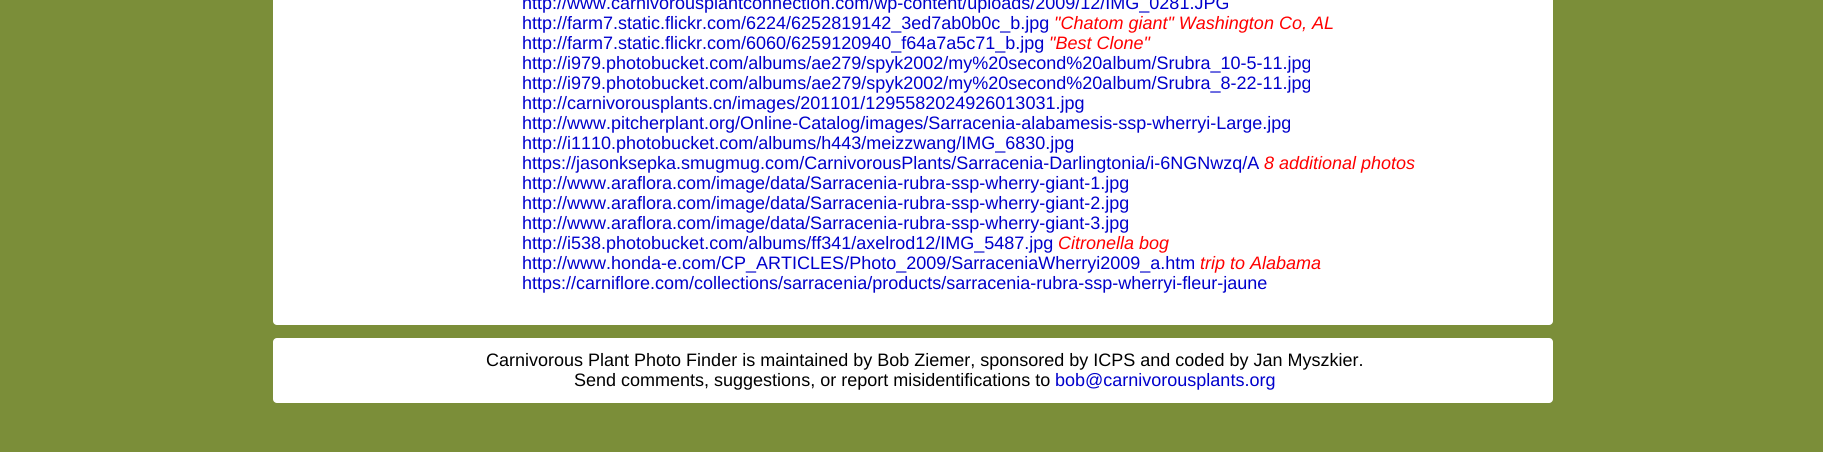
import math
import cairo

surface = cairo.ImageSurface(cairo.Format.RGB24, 1823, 452)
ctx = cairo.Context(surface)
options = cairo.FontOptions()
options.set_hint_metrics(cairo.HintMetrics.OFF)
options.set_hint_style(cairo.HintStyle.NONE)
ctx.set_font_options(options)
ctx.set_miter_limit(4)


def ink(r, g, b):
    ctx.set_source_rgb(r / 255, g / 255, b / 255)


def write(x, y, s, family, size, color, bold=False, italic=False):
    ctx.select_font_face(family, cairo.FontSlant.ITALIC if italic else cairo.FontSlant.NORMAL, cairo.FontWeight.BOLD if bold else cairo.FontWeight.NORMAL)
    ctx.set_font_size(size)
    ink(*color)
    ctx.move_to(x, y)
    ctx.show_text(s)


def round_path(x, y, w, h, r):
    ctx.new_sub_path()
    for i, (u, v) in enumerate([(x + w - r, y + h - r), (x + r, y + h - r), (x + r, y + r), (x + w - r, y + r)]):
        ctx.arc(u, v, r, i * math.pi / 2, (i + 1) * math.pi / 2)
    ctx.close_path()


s1 = dict(family="Liberation Sans", size=18, color=(0, 0, 204))
s2 = dict(family="Liberation Sans", size=18, color=(255, 0, 0), italic=True)
s3 = dict(family="Liberation Sans", size=18, color=(0, 0, 0))

ink(123, 142, 57)
ctx.paint()
ink(255, 255, 255)
round_path(273, -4, 1280, 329, 4)
ctx.fill()
write(522, 9, "http://www.carnivorousplantconnection.com/wp-content/uploads/2009/12/IMG_0281.JPG", **s1)
write(522, 29, "http://farm7.static.flickr.com/6224/6252819142_3ed7ab0b0c_b.jpg", **s1)
write(1054, 29, "\"Chatom giant\" Washington Co, AL", **s2)
write(522, 49, "http://farm7.static.flickr.com/6060/6259120940_f64a7a5c71_b.jpg", **s1)
write(1049, 49, "\"Best Clone\"", **s2)
write(522, 69, "http://i979.photobucket.com/albums/ae279/spyk2002/my%20second%20album/Srubra_10-5-11.jpg", **s1)
write(522, 89, "http://i979.photobucket.com/albums/ae279/spyk2002/my%20second%20album/Srubra_8-22-11.jpg", **s1)
write(522, 109, "http://carnivorousplants.cn/images/201101/1295582024926013031.jpg", **s1)
write(522, 129, "http://www.pitcherplant.org/Online-Catalog/images/Sarracenia-alabamesis-ssp-wherryi-Large.jpg", **s1)
write(522, 149, "http://i1110.photobucket.com/albums/h443/meizzwang/IMG_6830.jpg", **s1)
write(522, 169, "https://jasonksepka.smugmug.com/CarnivorousPlants/Sarracenia-Darlingtonia/i-6NGNwzq/A", **s1)
write(1264, 169, "8 additional photos", **s2)
write(522, 189, "http://www.araflora.com/image/data/Sarracenia-rubra-ssp-wherry-giant-1.jpg", **s1)
write(522, 209, "http://www.araflora.com/image/data/Sarracenia-rubra-ssp-wherry-giant-2.jpg", **s1)
write(522, 229, "http://www.araflora.com/image/data/Sarracenia-rubra-ssp-wherry-giant-3.jpg", **s1)
write(522, 249, "http://i538.photobucket.com/albums/ff341/axelrod12/IMG_5487.jpg", **s1)
write(1058, 249, "Citronella bog", **s2)
write(522, 269, "http://www.honda-e.com/CP_ARTICLES/Photo_2009/SarraceniaWherryi2009_a.htm", **s1)
write(1200, 269, "trip to Alabama", **s2)
write(522, 289, "https://carniflore.com/collections/sarracenia/products/sarracenia-rubra-ssp-wherryi-fleur-jaune", **s1)
ink(255, 255, 255)
round_path(273, 338, 1280, 65, 4)
ctx.fill()
write(486, 366, "Carnivorous Plant Photo Finder is maintained by Bob Ziemer, sponsored by ICPS and coded by Jan Myszkier.", **s3)
write(574, 386, "Send comments, suggestions, or report misidentifications to", **s3)
write(1055, 386, "bob@carnivorousplants.org", **s1)
surface.write_to_png("screenshot.png")
